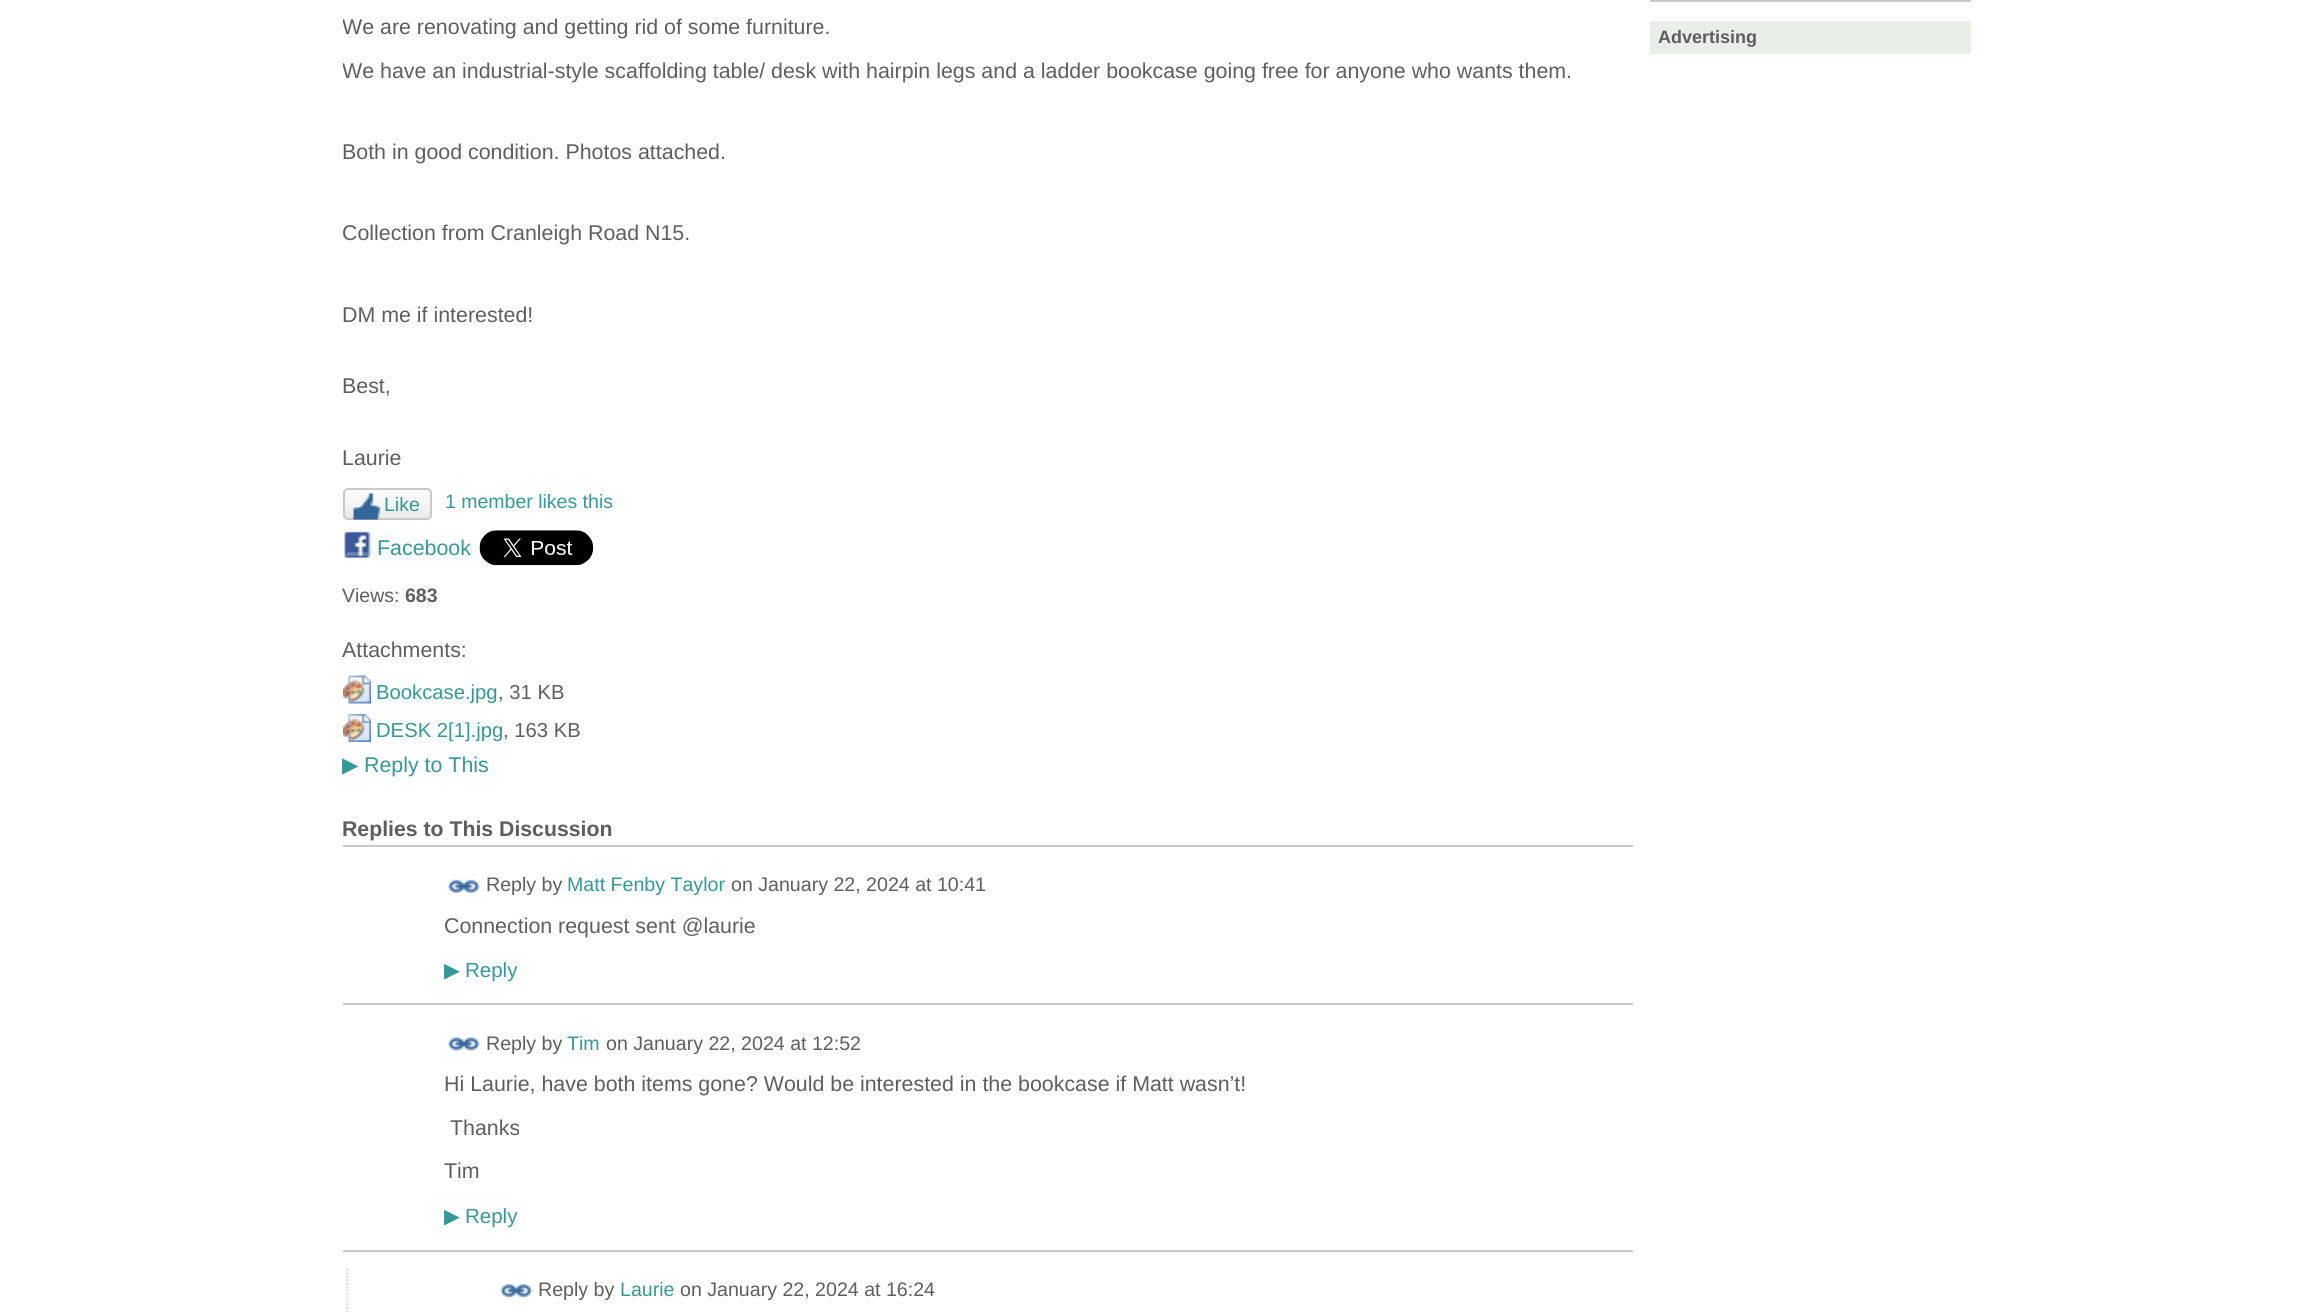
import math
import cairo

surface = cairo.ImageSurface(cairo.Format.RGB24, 2302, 1312)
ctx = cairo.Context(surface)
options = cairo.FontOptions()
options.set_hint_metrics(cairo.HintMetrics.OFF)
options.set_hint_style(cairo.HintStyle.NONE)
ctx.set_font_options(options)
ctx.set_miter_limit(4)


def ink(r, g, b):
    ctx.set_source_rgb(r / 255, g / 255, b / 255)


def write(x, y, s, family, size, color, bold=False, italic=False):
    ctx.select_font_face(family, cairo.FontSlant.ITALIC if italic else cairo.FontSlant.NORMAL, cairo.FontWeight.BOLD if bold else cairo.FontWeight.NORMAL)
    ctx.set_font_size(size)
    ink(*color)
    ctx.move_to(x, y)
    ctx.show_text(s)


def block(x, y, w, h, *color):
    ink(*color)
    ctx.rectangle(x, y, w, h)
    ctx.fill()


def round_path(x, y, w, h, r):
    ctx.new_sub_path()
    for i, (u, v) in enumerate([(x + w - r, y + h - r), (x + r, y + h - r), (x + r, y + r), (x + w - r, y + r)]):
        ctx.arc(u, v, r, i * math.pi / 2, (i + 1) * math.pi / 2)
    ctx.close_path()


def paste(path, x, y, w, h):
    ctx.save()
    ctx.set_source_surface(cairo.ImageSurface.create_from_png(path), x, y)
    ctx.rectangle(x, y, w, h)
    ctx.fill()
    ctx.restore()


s1 = dict(family="Liberation Sans", size=21.38, color=(94, 94, 94))
s2 = dict(family="Liberation Sans", size=19.5, color=(52, 152, 153))
s3 = dict(family="Liberation Sans", size=21.38, color=(52, 152, 153))
s4 = dict(family="Liberation Sans", size=19.5, color=(94, 94, 94))
s5 = dict(family="Liberation Sans", size=19.5, color=(94, 94, 94), bold=True)
s6 = dict(family="Liberation Sans", size=20.25, color=(52, 152, 153))
s7 = dict(family="Liberation Sans", size=20.25, color=(94, 94, 94))
s8 = dict(family="DejaVu Sans", size=21.38, color=(52, 152, 153))
s9 = dict(family="Liberation Sans", size=21.25, color=(94, 94, 94), bold=True)
s10 = dict(family="Liberation Sans", size=19.6, color=(94, 94, 94))
s11 = dict(family="Liberation Sans", size=19.6, color=(52, 152, 153))
s12 = dict(family="DejaVu Sans", size=20.5, color=(52, 152, 153))
s13 = dict(family="Liberation Sans", size=20.5, color=(52, 152, 153))
s14 = dict(family="Liberation Sans", size=18, color=(94, 94, 94), bold=True)

ink(255, 255, 255)
ctx.paint()
ctx.save()
ctx.rectangle(343, 0, 1290, 474)
ctx.clip()
write(342, 34, "We are renovating and getting rid of some furniture.", **s1)
write(342, 78, "We have an industrial-style scaffolding table/ desk with hairpin legs and a ladder bookcase going free for anyone who wants them.", **s1)
ctx.restore()
write(342, 159, "Both in good condition. Photos attached.", **s1)
write(342, 240, "Collection from Cranleigh Road N15.", **s1)
write(342, 322, "DM me if interested!", **s1)
write(342, 393, "Best,", **s1)
write(342, 465, "Laurie", **s1)
paste("pic1.png", 343, 492, 89, 28)
round_path(344, 489, 87, 30, 4)
ink(201, 201, 201)
ctx.stroke()
paste("pic2.png", 353, 493, 28, 27)
write(384, 511, "Like", **s2)
write(445, 508, "1 member likes this", **s2)
paste("pic3.png", 344, 531, 27, 28)
write(377, 555, "Facebook", **s3)
paste("pic4.png", 479, 530, 115, 36)
write(342, 602, "Views:", **s4)
write(405, 602, "683", **s5)
write(342, 657, "Attachments:", **s1)
paste("pic5.png", 343, 675, 28, 29)
write(376, 699, "Bookcase.jpg", **s6)
write(498, 699, ", 31 KB", **s7)
paste("pic6.png", 343, 714, 28, 28)
write(376, 737, "DESK 2[1].jpg", **s6)
write(503, 737, ", 163 KB", **s7)
write(342, 772, "▶", **s8)
write(364, 772, "Reply to This", **s3)
write(342, 836, "Replies to This Discussion", **s9)
block(343, 845, 1290, 2, 201, 201, 201)
paste("pic7.png", 448, 879, 32, 14)
write(486, 891, "Reply by", **s10)
write(567, 891, "Matt Fenby Taylor", **s11)
write(731, 891, "on January 22, 2024 at 10:41", **s10)
ctx.save()
ctx.rectangle(445, 914, 1127, 28)
ctx.clip()
write(444, 933, "Connection request sent @laurie", **s1)
ctx.restore()
write(444, 977, "▶", **s12)
write(465, 977, "Reply", **s13)
block(343, 1003, 1290, 2, 201, 201, 201)
paste("pic8.png", 448, 1037, 32, 14)
write(486, 1050, "Reply by", **s10)
write(567, 1050, "Tim", **s11)
write(606, 1050, "on January 22, 2024 at 12:52", **s10)
write(444, 1091, "Hi Laurie, have both items gone? Would be interested in the bookcase if Matt wasn’t!", **s1)
write(450, 1135, "Thanks", **s1)
write(444, 1178, "Tim", **s1)
write(444, 1223, "▶", **s12)
write(465, 1223, "Reply", **s13)
paste("pic9.png", 346, 1268, 3, 44)
block(343, 1250, 1290, 2, 201, 201, 201)
paste("pic10.png", 500, 1284, 33, 14)
write(538, 1296, "Reply by", **s10)
write(620, 1296, "Laurie", **s11)
write(680, 1296, "on January 22, 2024 at 16:24", **s10)
ctx.rectangle(1652.5, -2.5, 316, 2)
ink(201, 201, 201)
ctx.set_line_width(5)
ctx.stroke()
block(1650, 21, 321, 33, 233, 238, 232)
write(1658, 43, "Advertising", **s14)
surface.write_to_png("screenshot.png")
